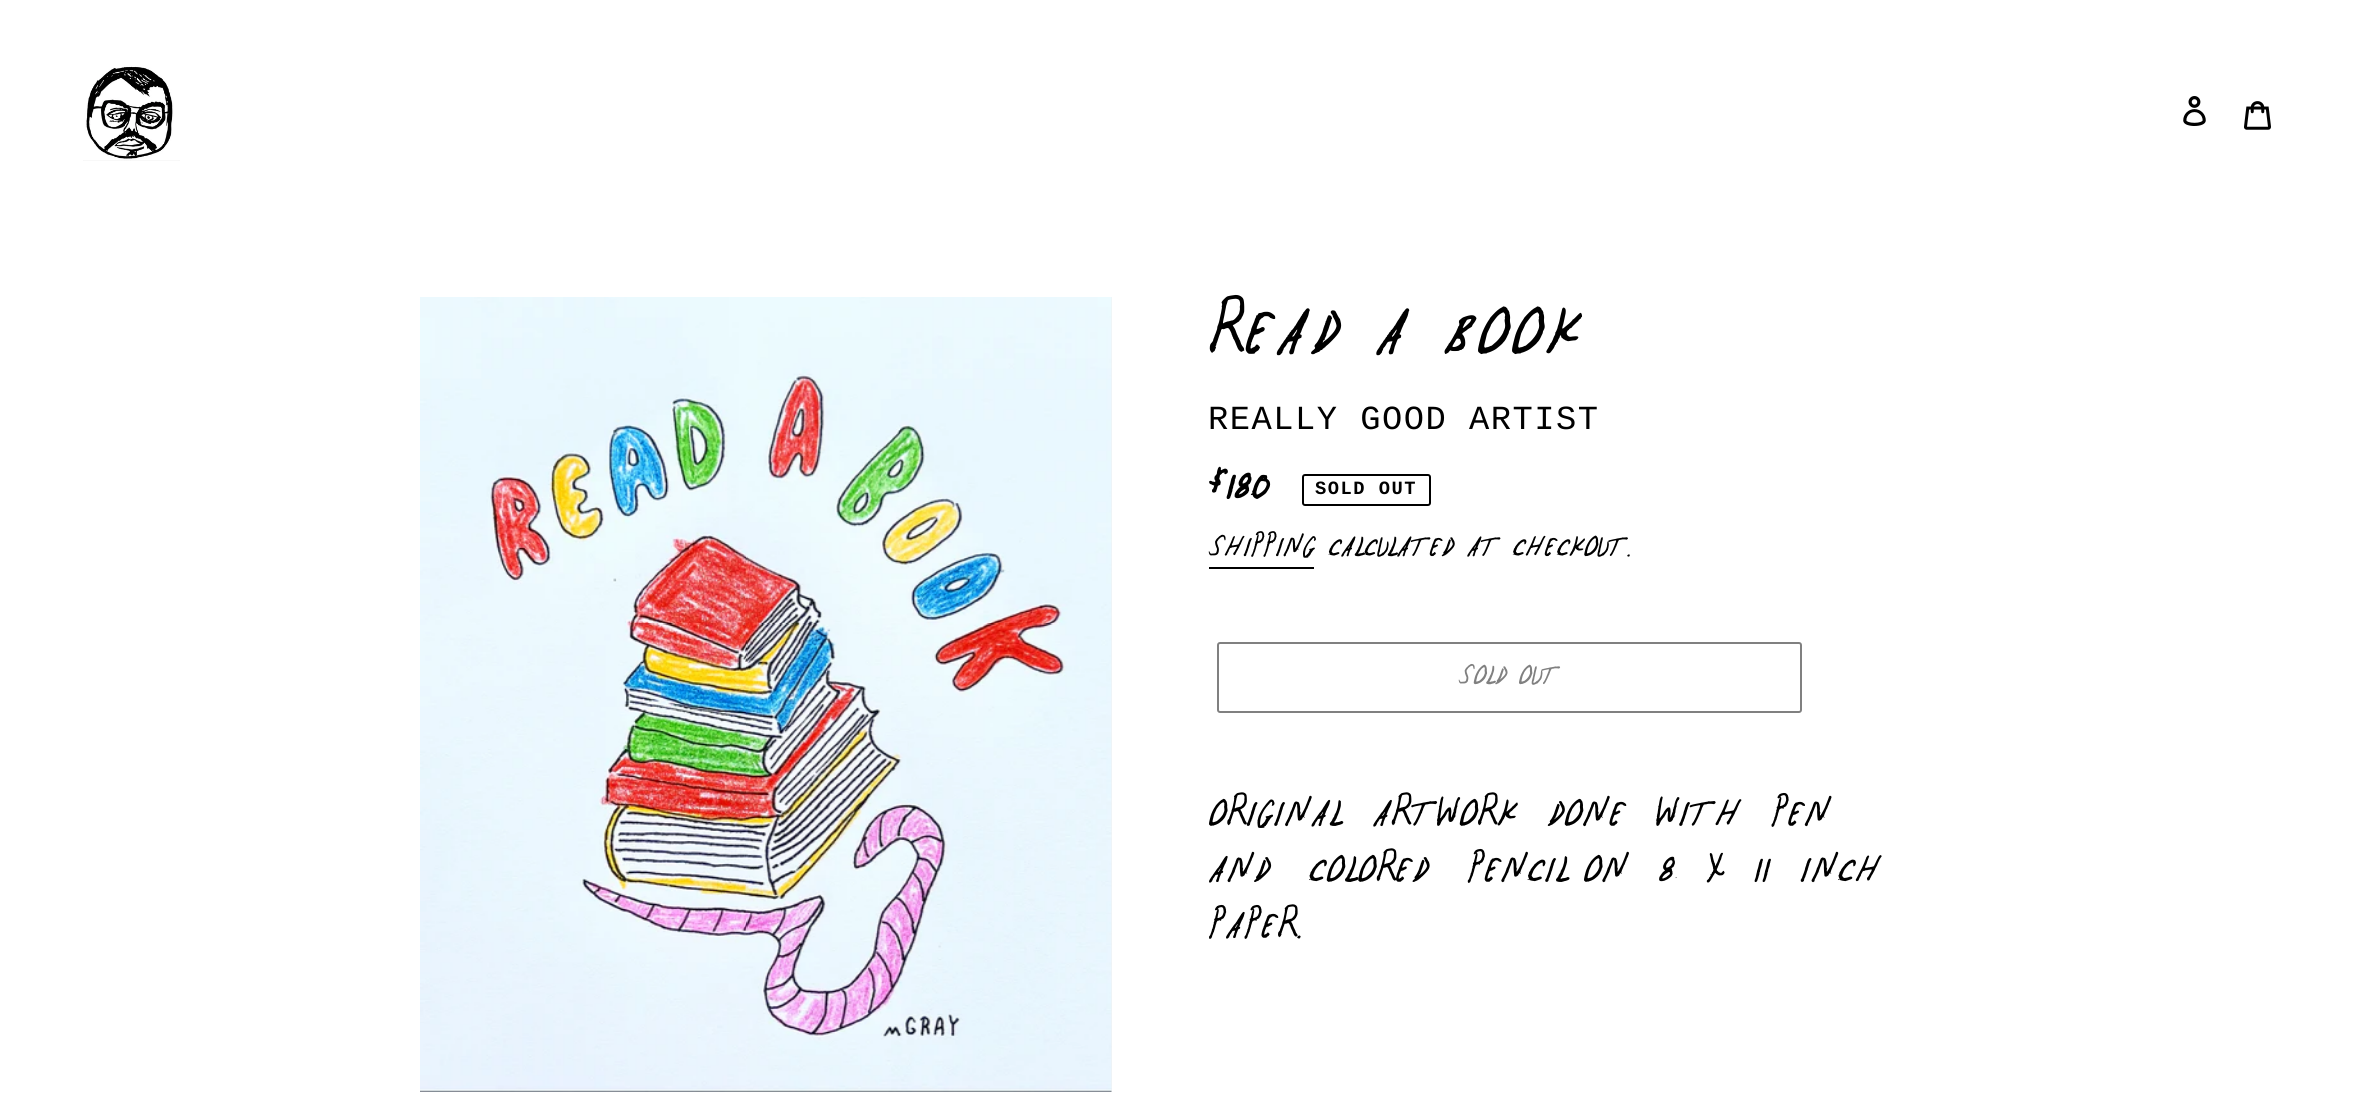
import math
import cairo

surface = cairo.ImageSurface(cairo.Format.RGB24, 2371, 1093)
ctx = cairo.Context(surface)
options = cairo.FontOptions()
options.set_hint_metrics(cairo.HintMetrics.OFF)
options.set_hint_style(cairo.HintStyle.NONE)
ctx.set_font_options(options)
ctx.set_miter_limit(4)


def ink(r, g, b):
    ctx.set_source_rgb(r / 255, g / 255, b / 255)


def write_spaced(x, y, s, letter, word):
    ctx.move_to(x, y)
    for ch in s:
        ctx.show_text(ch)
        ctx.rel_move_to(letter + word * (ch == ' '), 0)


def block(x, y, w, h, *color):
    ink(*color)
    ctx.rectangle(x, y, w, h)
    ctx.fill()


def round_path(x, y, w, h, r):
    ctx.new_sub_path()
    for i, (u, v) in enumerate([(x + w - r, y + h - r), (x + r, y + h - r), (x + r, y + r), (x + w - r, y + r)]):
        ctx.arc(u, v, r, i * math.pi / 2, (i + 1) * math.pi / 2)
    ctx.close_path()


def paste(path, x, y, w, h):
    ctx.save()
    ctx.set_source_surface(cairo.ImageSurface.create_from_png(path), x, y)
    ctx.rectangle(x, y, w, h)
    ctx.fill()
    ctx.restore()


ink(255, 255, 255)
ctx.paint()
block(83, 160, 97, 1, 240, 240, 240)
paste("pic1.png", 83, 63, 97, 98)
paste("pic2.png", 2183, 96, 23, 30)
paste("pic3.png", 2244, 101, 27, 29)
block(1111, 297, 1, 795, 241, 241, 241)
paste("pic4.png", 420, 297, 692, 795)
ctx.select_font_face("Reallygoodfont")
ctx.set_font_size(66)
ink(0, 0, 0)
write_spaced(1208, 356, "READ A BOOK", -2.4, 0)
ctx.select_font_face("Liberation Mono")
ctx.set_font_size(33.75)
write_spaced(1208, 429, "REALLY GOOD ARTIST", 1.5, 0)
ctx.select_font_face("Reallygoodfont", cairo.FontSlant.NORMAL, cairo.FontWeight.BOLD)
ctx.set_font_size(37.5)
write_spaced(1208, 500, "$180", -2.4, 0)
round_path(1303, 475, 127, 30, 2)
ctx.stroke()
ctx.select_font_face("Liberation Mono", cairo.FontSlant.NORMAL, cairo.FontWeight.BOLD)
ctx.set_font_size(18.75)
write_spaced(1315, 494, "SOLD OUT", 1.5, 0)
ctx.select_font_face("Reallygoodfont")
ctx.set_font_size(28.5)
write_spaced(1208, 557, "SHIPPING CALCULATED AT CHECKOUT.", -2.4, 0)
block(1209, 567, 105, 2, 0, 0, 0)
round_path(1218, 643, 583, 69, 2)
ink(128, 128, 128)
ctx.stroke()
ctx.set_font_size(27)
write_spaced(1458, 685, "SOLD OUT", -2.4, 0)
ctx.set_font_size(37.5)
ink(0, 0, 0)
write_spaced(1208, 827, "ORIGINAL ARTWORK DONE WITH PEN", -2.4, 12)
write_spaced(1208, 883, "AND COLORED PENCIL", -2.4, 20)
write_spaced(1583, 883, "ON 8 X 11 INCH", -2.4, 12)
write_spaced(1208, 939, "PAPER.", -2.4, 0)
surface.write_to_png("screenshot.png")
